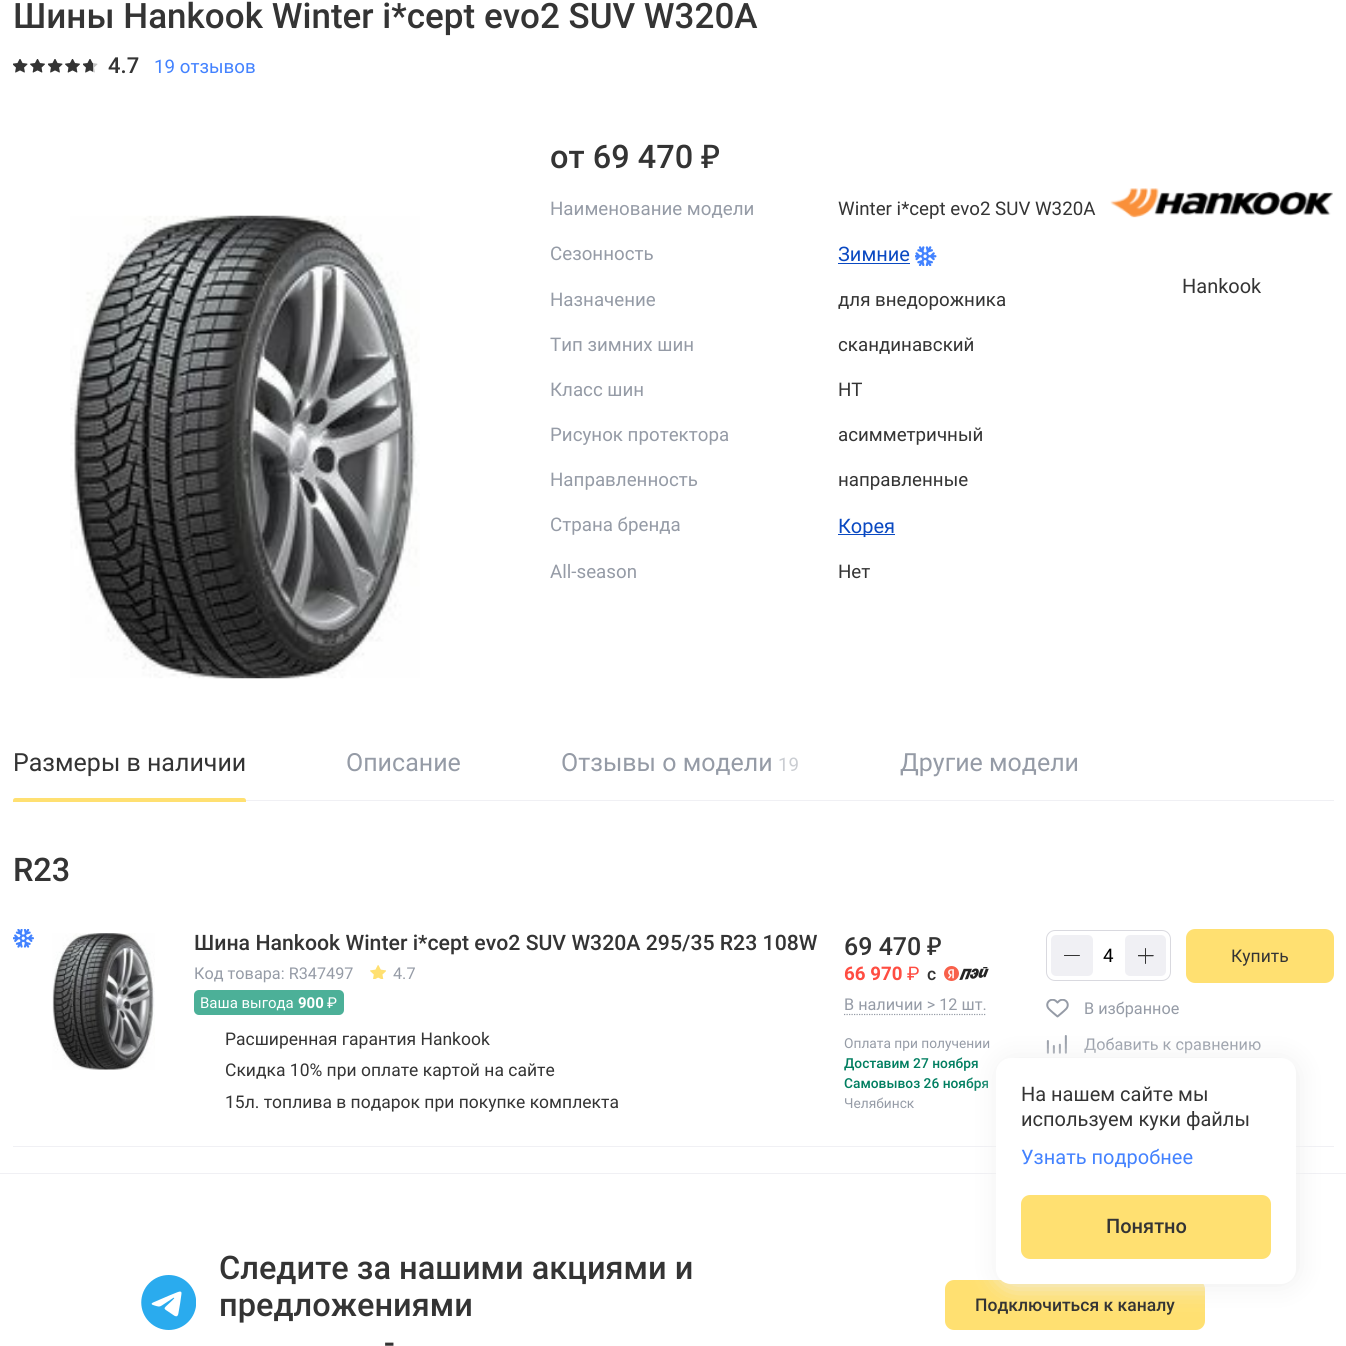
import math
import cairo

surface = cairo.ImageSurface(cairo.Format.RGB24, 1346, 1346)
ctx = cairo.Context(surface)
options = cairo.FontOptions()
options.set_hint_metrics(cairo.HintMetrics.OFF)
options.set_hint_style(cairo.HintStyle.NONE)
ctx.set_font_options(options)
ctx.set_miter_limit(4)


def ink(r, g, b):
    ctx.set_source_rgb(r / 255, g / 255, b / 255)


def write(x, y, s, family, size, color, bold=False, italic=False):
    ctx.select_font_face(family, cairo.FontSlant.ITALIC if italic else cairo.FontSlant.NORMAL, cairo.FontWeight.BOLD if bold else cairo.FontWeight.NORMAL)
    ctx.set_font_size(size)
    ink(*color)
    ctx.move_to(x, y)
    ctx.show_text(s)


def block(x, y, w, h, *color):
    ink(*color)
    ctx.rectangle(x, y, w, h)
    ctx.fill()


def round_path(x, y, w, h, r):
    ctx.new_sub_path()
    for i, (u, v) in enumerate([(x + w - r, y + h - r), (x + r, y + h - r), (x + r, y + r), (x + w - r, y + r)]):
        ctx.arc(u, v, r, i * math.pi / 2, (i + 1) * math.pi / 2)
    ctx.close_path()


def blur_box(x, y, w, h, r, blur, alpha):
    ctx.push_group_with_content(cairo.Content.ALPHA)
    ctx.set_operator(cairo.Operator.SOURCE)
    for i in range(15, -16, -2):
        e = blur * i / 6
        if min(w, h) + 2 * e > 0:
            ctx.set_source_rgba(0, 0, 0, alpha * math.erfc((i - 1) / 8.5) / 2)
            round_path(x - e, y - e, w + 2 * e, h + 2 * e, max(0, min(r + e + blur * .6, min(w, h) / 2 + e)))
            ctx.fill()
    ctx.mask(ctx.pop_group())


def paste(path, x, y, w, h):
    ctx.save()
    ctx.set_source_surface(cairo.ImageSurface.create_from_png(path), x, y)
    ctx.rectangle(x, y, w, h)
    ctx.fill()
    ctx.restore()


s1 = dict(family="Roboto Medium", size=35, color=(52, 52, 52))
s2 = dict(family="Roboto Medium", size=22, color=(52, 52, 52))
s3 = dict(family="Roboto", size=18.75, color=(67, 130, 255))
s4 = dict(family="Roboto Medium", size=32.5, color=(52, 52, 52))
s5 = dict(family="Noto Sans Medium", size=32.5, color=(52, 52, 52))
s6 = dict(family="Roboto", size=18.75, color=(149, 155, 166))
s7 = dict(family="Roboto", size=18.75, color=(52, 52, 52))
s8 = dict(family="Roboto", size=20, color=(10, 73, 194))
s9 = dict(family="Roboto", size=20, color=(52, 52, 52))
s10 = dict(family="Roboto", size=25, color=(52, 52, 52))
s11 = dict(family="Roboto", size=25, color=(149, 155, 166))
s12 = dict(family="Roboto", size=18.75, color=(202, 205, 210))
s13 = dict(family="Roboto Medium", size=21.25, color=(52, 52, 52))
s14 = dict(family="Roboto", size=16.25, color=(149, 155, 166))
s15 = dict(family="Roboto", size=15, color=(255, 255, 255))
s16 = dict(family="Roboto", size=15, color=(255, 255, 255), bold=True)
s17 = dict(family="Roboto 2", size=15, color=(255, 255, 255))
s18 = dict(family="Roboto", size=17.5, color=(52, 52, 52))
s19 = dict(family="Roboto Medium", size=25, color=(52, 52, 52))
s20 = dict(family="Noto Sans Medium", size=25, color=(52, 52, 52))
s21 = dict(family="Roboto", size=18.75, color=(255, 77, 66), bold=True)
s22 = dict(family="Roboto 2", size=18.75, color=(255, 77, 66))
s23 = dict(family="Roboto Medium", size=17.5, color=(52, 52, 52))
s24 = dict(family="Roboto", size=13.75, color=(149, 155, 166))
s25 = dict(family="Roboto Medium", size=13.75, color=(0, 126, 96))
s26 = dict(family="Roboto", size=18.75, color=(0, 0, 0))
s27 = dict(family="Roboto", size=20, color=(67, 130, 255))
s28 = dict(family="Roboto Medium", size=20, color=(52, 52, 52))

ink(255, 255, 255)
ctx.paint()
write(13, 28, "Шины Hankook Winter i*cept evo2 SUV W320A", **s1)
paste("pic1.png", 13, 59, 15, 14)
paste("pic2.png", 30, 59, 15, 14)
paste("pic1.png", 48, 59, 15, 14)
paste("pic2.png", 65, 59, 15, 14)
paste("pic1.png", 83, 59, 15, 14)
paste("pic3.png", 13, 59, 15, 14)
paste("pic4.png", 30, 59, 15, 14)
paste("pic3.png", 48, 59, 15, 14)
paste("pic4.png", 65, 59, 15, 14)
paste("pic5.png", 83, 59, 10, 14)
write(108, 73, "4.7", **s2)
write(154, 73, "19 отзывов", **s3)
paste("pic6.png", 70, 215, 350, 464)
write(550, 168, "от 69 470", **s4)
write(701, 168, "₽", **s5)
write(550, 215, "Наименование модели", **s6)
write(838, 215, "Winter i*cept evo2 SUV W320A", **s7)
write(550, 260, "Сезонность", **s6)
write(838, 261, "Зимние", **s8)
block(838, 263, 72, 1, 10, 73, 194)
paste("pic7.png", 915, 246, 22, 20)
write(550, 306, "Назначение", **s6)
write(838, 306, "для внедорожника", **s7)
write(550, 351, "Тип зимних шин", **s6)
write(838, 351, "скандинавский", **s7)
write(550, 396, "Класс шин", **s6)
write(838, 396, "HT", **s7)
write(550, 441, "Рисунок протектора", **s6)
write(838, 441, "асимметричный", **s7)
write(550, 486, "Направленность", **s6)
write(838, 486, "направленные", **s7)
write(550, 531, "Страна бренда", **s6)
block(838, 534, 57, 1, 10, 73, 194)
write(838, 533, "Корея", **s8)
write(550, 578, "All-season", **s6)
write(838, 578, "Нет", **s7)
paste("pic8.png", 1110, 188, 223, 30)
write(1182, 293, "Hankook", **s9)
block(13, 800, 1321, 1, 240, 240, 244)
write(13, 771, "Размеры в наличии", **s10)
ink(255, 224, 113)
ctx.new_path()
ctx.move_to(15.5, 798)
ctx.line_to(243.5, 798)
ctx.curve_to(245, 798, 246, 799, 246, 800.5)
ctx.line_to(246, 802)
ctx.line_to(13, 802)
ctx.line_to(13, 800.5)
ctx.curve_to(13, 799, 14, 798, 15.5, 798)
ctx.close_path()
ctx.fill()
write(346, 771, "Описание", **s11)
write(561, 771, "Отзывы о модели", **s11)
write(778, 771, "19", **s12)
write(900, 771, "Другие модели", **s11)
write(13, 881, "R23", **s4)
block(13, 1146, 1321, 1, 240, 240, 244)
paste("pic9.png", 13, 929, 21, 19)
paste("pic10.png", 52, 933, 103, 137)
write(194, 950, "Шина Hankook Winter i*cept evo2 SUV W320A 295/35 R23 108W", **s13)
write(194, 979, "Код товара: R347497", **s14)
paste("pic11.png", 370, 965, 16, 14)
write(393, 979, "4.7", **s14)
ink(76, 176, 152)
round_path(194, 990, 150, 25, 5)
ctx.fill()
write(200, 1008, "Ваша выгода", **s15)
write(298, 1008, "900", **s16)
write(327, 1008, "₽", **s17)
write(225, 1045, "Расширенная гарантия Hankook", **s18)
write(225, 1076, "Скидка 10% при оплате картой на сайте", **s18)
write(225, 1108, "15л. топлива в подарок при покупке комплекта", **s18)
write(844, 955, "69 470", **s19)
write(927, 955, "₽", **s20)
write(844, 980, "66 970", **s21)
write(907, 980, "₽", **s22)
write(927, 980, "с", **s23)
paste("pic12.png", 944, 966, 45, 15)
write(844, 1010, "В наличии > 12 шт.", **s14)
ctx.new_path()
ctx.move_to(844, 1014.5)
ctx.line_to(986, 1014.5)
ctx.set_line_width(1.2)
ctx.set_dash([1.25, 1.25])
ctx.stroke()
write(844, 1048, "Оплата при получении", **s24)
write(844, 1068, "Доставим 27 ноября", **s25)
write(844, 1088, "Самовывоз 26 ноября", **s25)
write(844, 1108, "Челябинск", **s24)
round_path(1046.5, 930.5, 124, 50, 8.5)
ink(217, 217, 223)
ctx.set_line_width(1)
ctx.set_dash([])
ctx.stroke()
ink(240, 240, 244)
round_path(1051, 935, 42, 41, 5)
ctx.fill()
paste("pic13.png", 1064, 955, 16, 1)
write(1103, 962, "4", **s26)
ink(240, 240, 244)
round_path(1125, 935, 41, 41, 5)
ctx.fill()
paste("pic14.png", 1138, 948, 16, 16)
ink(255, 224, 113)
round_path(1186, 929, 148, 54, 9)
ctx.fill()
write(1231, 962, "Купить", **s18)
paste("pic15.png", 1046, 999, 23, 19)
write(1084, 1014, "В избранное", **s14)
paste("pic16.png", 1046, 1035, 21, 19)
write(1084, 1050, "Добавить к сравнению", **s14)
block(0, 1173, 1346, 1, 240, 240, 244)
ink(255, 224, 113)
round_path(945, 1280, 260, 50, 9)
ctx.fill()
ink(238, 238, 238)
blur_box(998, 1059, 300, 226, 15, 12.5, 1)
ink(255, 255, 255)
round_path(996, 1058, 300, 226, 15)
ctx.fill()
write(1021, 1101, "На нашем сайте мы", **s9)
write(1021, 1126, "используем куки файлы", **s9)
write(1021, 1164, "Узнать подробнее", **s27)
ink(255, 224, 113)
round_path(1021, 1195, 250, 64, 9)
ctx.fill()
write(1106, 1233, "Понятно", **s28)
paste("pic17.png", 141, 1275, 55, 55)
write(219, 1279, "Следите за нашими акциями и", **s4)
write(219, 1316, "предложениями", **s4)
write(384, 1354, "-", **s4)
write(975, 1311, "Подключиться к каналу", **s23)
surface.write_to_png("screenshot.png")
